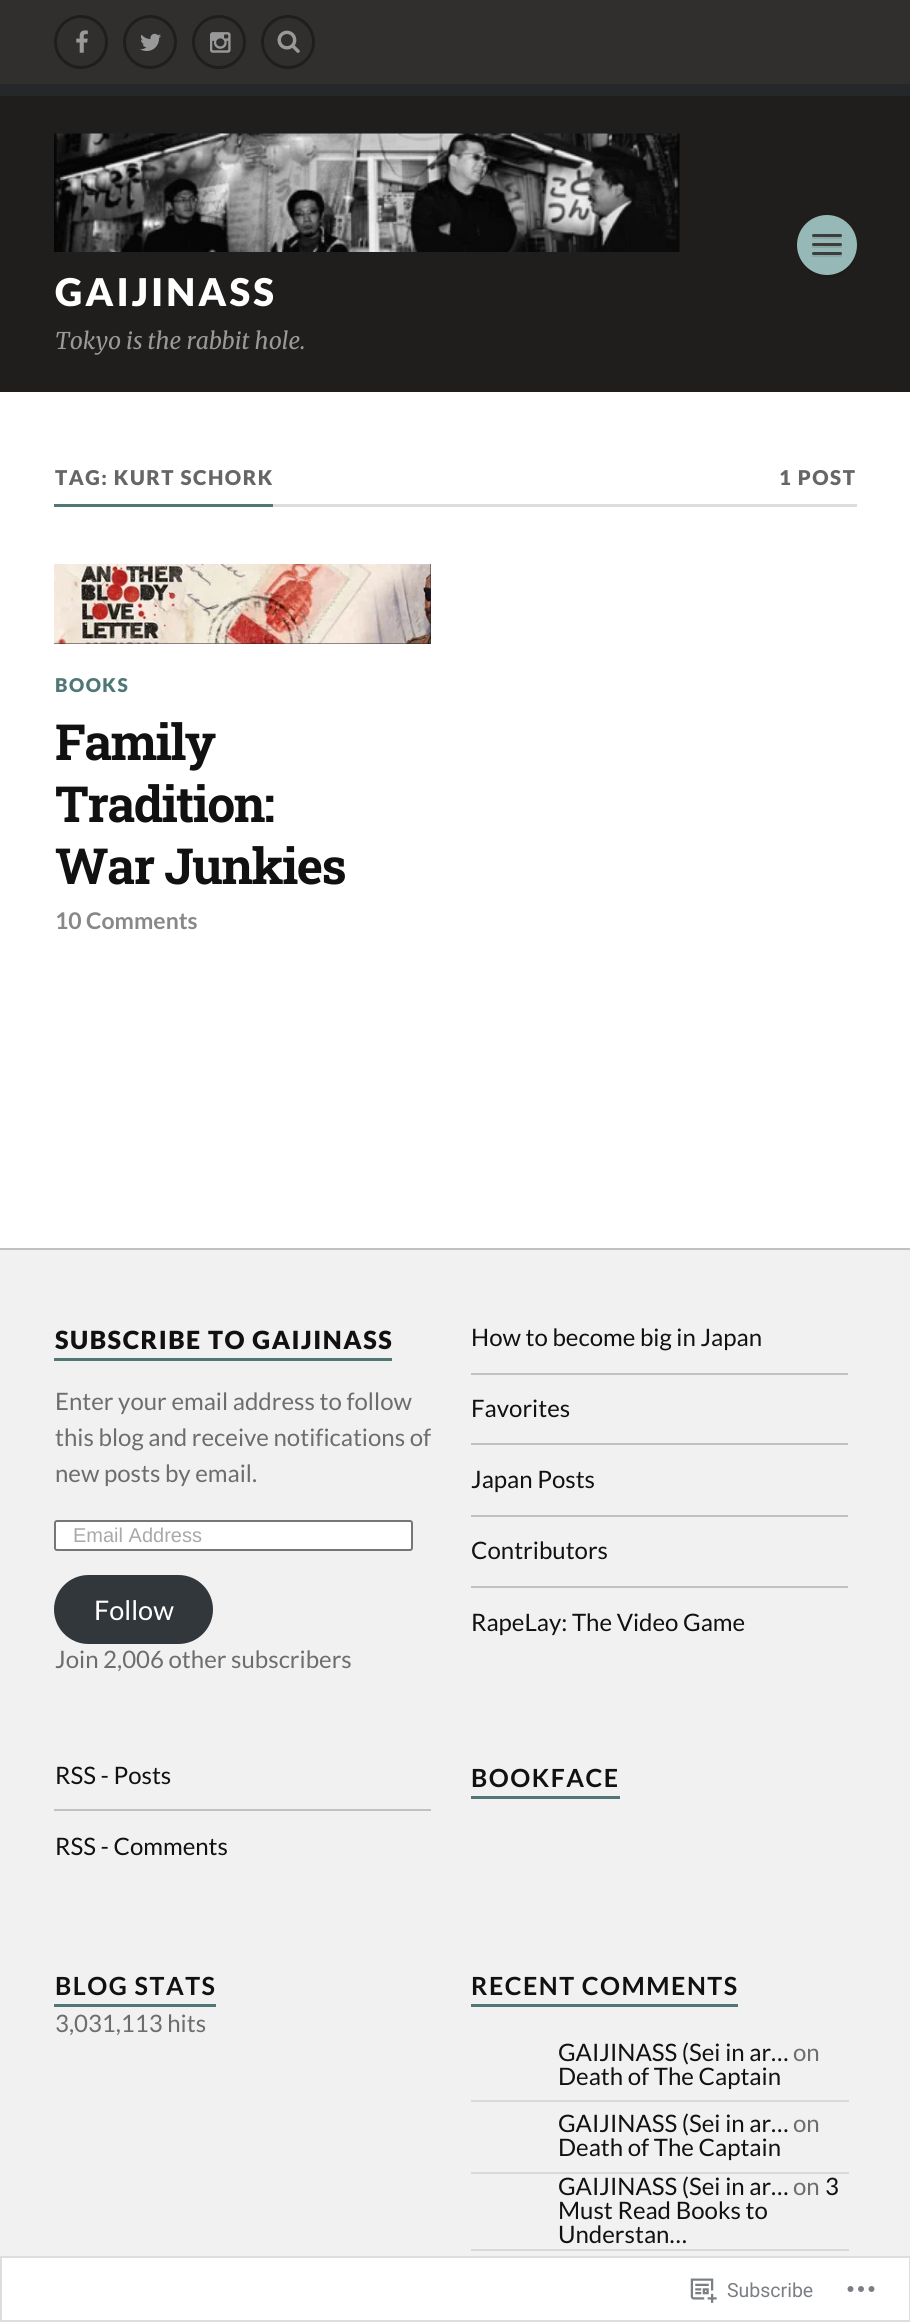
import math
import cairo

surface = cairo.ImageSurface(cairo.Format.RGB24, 910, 2322)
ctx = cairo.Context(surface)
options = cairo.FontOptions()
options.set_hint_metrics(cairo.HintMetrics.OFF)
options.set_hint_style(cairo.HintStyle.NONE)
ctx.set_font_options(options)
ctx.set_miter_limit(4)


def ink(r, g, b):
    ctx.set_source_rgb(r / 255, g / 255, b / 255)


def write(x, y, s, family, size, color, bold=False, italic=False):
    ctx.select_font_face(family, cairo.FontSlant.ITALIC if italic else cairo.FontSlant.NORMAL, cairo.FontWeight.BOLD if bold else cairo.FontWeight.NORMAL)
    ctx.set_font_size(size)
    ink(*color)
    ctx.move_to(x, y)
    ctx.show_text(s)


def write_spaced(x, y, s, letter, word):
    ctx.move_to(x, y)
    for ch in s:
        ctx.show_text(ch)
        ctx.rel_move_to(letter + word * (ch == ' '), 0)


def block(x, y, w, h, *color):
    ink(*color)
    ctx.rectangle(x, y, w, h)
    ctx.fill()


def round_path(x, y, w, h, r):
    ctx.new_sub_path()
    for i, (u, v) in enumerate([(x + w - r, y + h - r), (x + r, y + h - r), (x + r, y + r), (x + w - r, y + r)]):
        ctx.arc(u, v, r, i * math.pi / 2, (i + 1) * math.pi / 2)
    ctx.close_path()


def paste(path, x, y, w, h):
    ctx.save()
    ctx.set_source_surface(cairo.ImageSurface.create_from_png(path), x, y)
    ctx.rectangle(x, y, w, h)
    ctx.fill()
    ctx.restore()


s1 = dict(family="Merriweather Light", size=23, color=(153, 153, 153), italic=True)
s2 = dict(family="Lato", size=23, color=(136, 136, 136), bold=True)
s3 = dict(family="Lato", size=24, color=(109, 109, 109))
s4 = dict(family="Liberation Sans", size=20, color=(169, 169, 169))
s5 = dict(family="Lato", size=27, color=(255, 255, 255))
s6 = dict(family="Lato", size=24, color=(17, 17, 17))
s7 = dict(family="Roboto", size=19.5, color=(123, 127, 132))

ink(255, 255, 255)
ctx.paint()
block(0, 0, 910, 84, 48, 47, 46)
ctx.arc(81, 42, 25.5, 0, 2 * math.pi)
ink(31, 30, 29)
ctx.set_line_width(3)
ctx.stroke()
paste("pic1.png", 76, 30, 12, 23)
ctx.arc(150, 42, 25.5, 0, 2 * math.pi)
ctx.stroke()
paste("pic2.png", 140, 33, 21, 18)
ctx.arc(219, 42, 25.5, 0, 2 * math.pi)
ctx.stroke()
paste("pic3.png", 210, 32, 21, 21)
ctx.arc(288, 42, 25.5, 0, 2 * math.pi)
ctx.stroke()
paste("pic4.png", 277, 30, 23, 23)
block(0, 96, 910, 296, 31, 30, 29)
block(0, 84, 910, 12, 38, 39, 43)
paste("pic5.png", 54, 133, 626, 119)
ink(28, 27, 26)
ctx.new_path()
ctx.move_to(797, 251)
ctx.curve_to(798, 258, 801, 265, 807, 270)
ctx.curve_to(828, 290, 862, 270, 856, 242)
ctx.curve_to(859, 279, 805, 287, 797, 251)
ctx.close_path()
ctx.fill()
ink(150, 184, 182)
ctx.arc(827, 245, 30, 0, 2 * math.pi)
ctx.fill()
ink(135, 166, 164)
ctx.new_path()
ctx.move_to(812, 237)
ctx.curve_to(810.5, 239.5, 815, 239, 818, 239)
ctx.line_to(841, 239)
ctx.curve_to(842, 238.5, 842.5, 237, 841.5, 236)
ctx.curve_to(840.5, 238, 836, 237, 835.5, 237)
ctx.curve_to(832.5, 237, 813.5, 237.5, 812, 237)
ctx.close_path()
ctx.fill()
ink(61, 61, 61)
round_path(812, 234, 30, 3, 1.5)
ctx.fill()
ink(135, 166, 164)
ctx.new_path()
ctx.move_to(812, 246)
ctx.curve_to(810.5, 248.5, 815, 248, 818, 248)
ctx.line_to(841, 248)
ctx.curve_to(842, 247.5, 842.5, 246, 841.5, 245)
ctx.curve_to(840.5, 247, 836, 246, 835.5, 246)
ctx.curve_to(832.5, 246, 813.5, 246.5, 812, 246)
ctx.close_path()
ctx.fill()
ink(61, 61, 61)
round_path(812, 243, 30, 3, 1.5)
ctx.fill()
ink(135, 166, 164)
ctx.new_path()
ctx.move_to(812, 255)
ctx.curve_to(810.5, 257.5, 815, 257, 818, 257)
ctx.line_to(841, 257)
ctx.curve_to(842, 256.5, 842.5, 255, 841.5, 254)
ctx.curve_to(840.5, 256, 836, 255, 835.5, 255)
ctx.curve_to(832.5, 255, 813.5, 255.5, 812, 255)
ctx.close_path()
ctx.fill()
ink(61, 61, 61)
round_path(812, 252, 30, 3, 1.5)
ctx.fill()
ctx.select_font_face("Lato Black")
ctx.set_font_size(38.25)
ink(255, 255, 255)
write_spaced(55, 306, "GAIJINASS", 3, 0)
write(55, 349, "Tokyo is the rabbit hole.", **s1)
block(273, 504, 584, 3, 221, 221, 221)
block(54, 504, 219, 3, 80, 118, 117)
ctx.select_font_face("Lato Black")
ctx.set_font_size(20.4)
ink(102, 102, 102)
write_spaced(55, 485, "TAG: KURT SCHORK", 1.5, 0)
write_spaced(779, 485, "1 POST", 1.5, 0)
block(54, 564, 377, 80, 34, 34, 34)
paste("pic6.png", 54, 564, 377, 80)
ctx.set_font_size(19)
ink(80, 118, 117)
write_spaced(55, 692, "BOOKS", 1.5, 0)
ctx.select_font_face("Roboto Slab", cairo.FontSlant.NORMAL, cairo.FontWeight.BOLD)
ctx.set_font_size(49.75)
ink(17, 17, 17)
write_spaced(55, 760, "Family", -1.5, 0)
write_spaced(55, 822, "Tradition:", -1.5, 0)
write_spaced(55, 884, "War Junkies", -1.5, 0)
write(55, 929, "10 Comments", **s2)
block(0, 1250, 910, 1006, 241, 241, 241)
block(0, 1248, 910, 2, 193, 193, 193)
block(54, 1358, 338, 3, 80, 118, 117)
ctx.select_font_face("Lato Black")
ctx.set_font_size(25)
ink(17, 17, 17)
write_spaced(55, 1349, "SUBSCRIBE TO GAIJINASS", 1.5, 0)
write(55, 1410, "Enter your email address to follow", **s3)
write(55, 1446, "this blog and receive notifications of", **s3)
write(55, 1482, "new posts by email.", **s3)
ink(255, 255, 255)
round_path(55, 1521, 357, 29, 2)
ctx.fill_preserve()
ink(118, 118, 118)
ctx.set_line_width(2)
ctx.stroke()
write(73, 1542, "Email Address", **s4)
ink(50, 55, 60)
round_path(54, 1575, 159, 69, 34.5)
ctx.fill()
write(94, 1620, "Follow", **s5)
write(55, 1668, "Join 2,006 other subscribers", **s3)
block(471, 1373, 377, 2, 193, 193, 193)
write(471, 1346, "How to become big in Japan", **s6)
block(471, 1443, 377, 2, 193, 193, 193)
write(471, 1417, "Favorites", **s6)
block(471, 1515, 377, 2, 193, 193, 193)
write(471, 1488, "Japan Posts", **s6)
block(471, 1586, 377, 2, 193, 193, 193)
write(471, 1559, "Contributors", **s6)
write(471, 1631, "RapeLay: The Video Game", **s6)
block(54, 1809, 377, 2, 193, 193, 193)
write(55, 1784, "RSS - Posts", **s6)
write(55, 1855, "RSS - Comments", **s6)
block(471, 1796, 149, 3, 80, 118, 117)
ctx.select_font_face("Lato", cairo.FontSlant.NORMAL, cairo.FontWeight.BOLD)
ctx.set_font_size(25)
ink(17, 17, 17)
write_spaced(471, 1787, "BOOKFACE", 1.5, 0)
block(54, 2004, 162, 3, 80, 118, 117)
ink(17, 17, 17)
write_spaced(55, 1995, "BLOG STATS", 1.5, 0)
write(55, 2032, "3,031,113 hits", **s3)
block(471, 2004, 267, 3, 80, 118, 117)
ctx.select_font_face("Lato", cairo.FontSlant.NORMAL, cairo.FontWeight.BOLD)
ctx.set_font_size(25)
ink(17, 17, 17)
write_spaced(471, 1995, "RECENT COMMENTS", 1.5, 0)
block(471, 2100, 378, 2, 217, 217, 217)
write(558, 2061, "GAIJINASS (Sei in ar…", **s6)
write(793, 2061, "on", **s3)
write(558, 2085, "Death of The Captain", **s6)
block(471, 2172, 378, 2, 217, 217, 217)
write(558, 2132, "GAIJINASS (Sei in ar…", **s6)
write(793, 2132, "on", **s3)
write(558, 2156, "Death of The Captain", **s6)
block(471, 2249, 378, 2, 217, 217, 217)
write(558, 2195, "GAIJINASS (Sei in ar…", **s6)
write(793, 2195, "on", **s3)
write(825, 2195, "3", **s6)
write(558, 2219, "Must Read Books to", **s6)
write(558, 2243, "Understan…", **s6)
ctx.rectangle(1, 2257, 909, 64)
ink(221, 221, 223)
ctx.stroke()
paste("pic7.png", 690, 2278, 27, 25)
write(727, 2297, "Subscribe", **s7)
paste("pic8.png", 847, 2286, 28, 6)
surface.write_to_png("screenshot.png")
